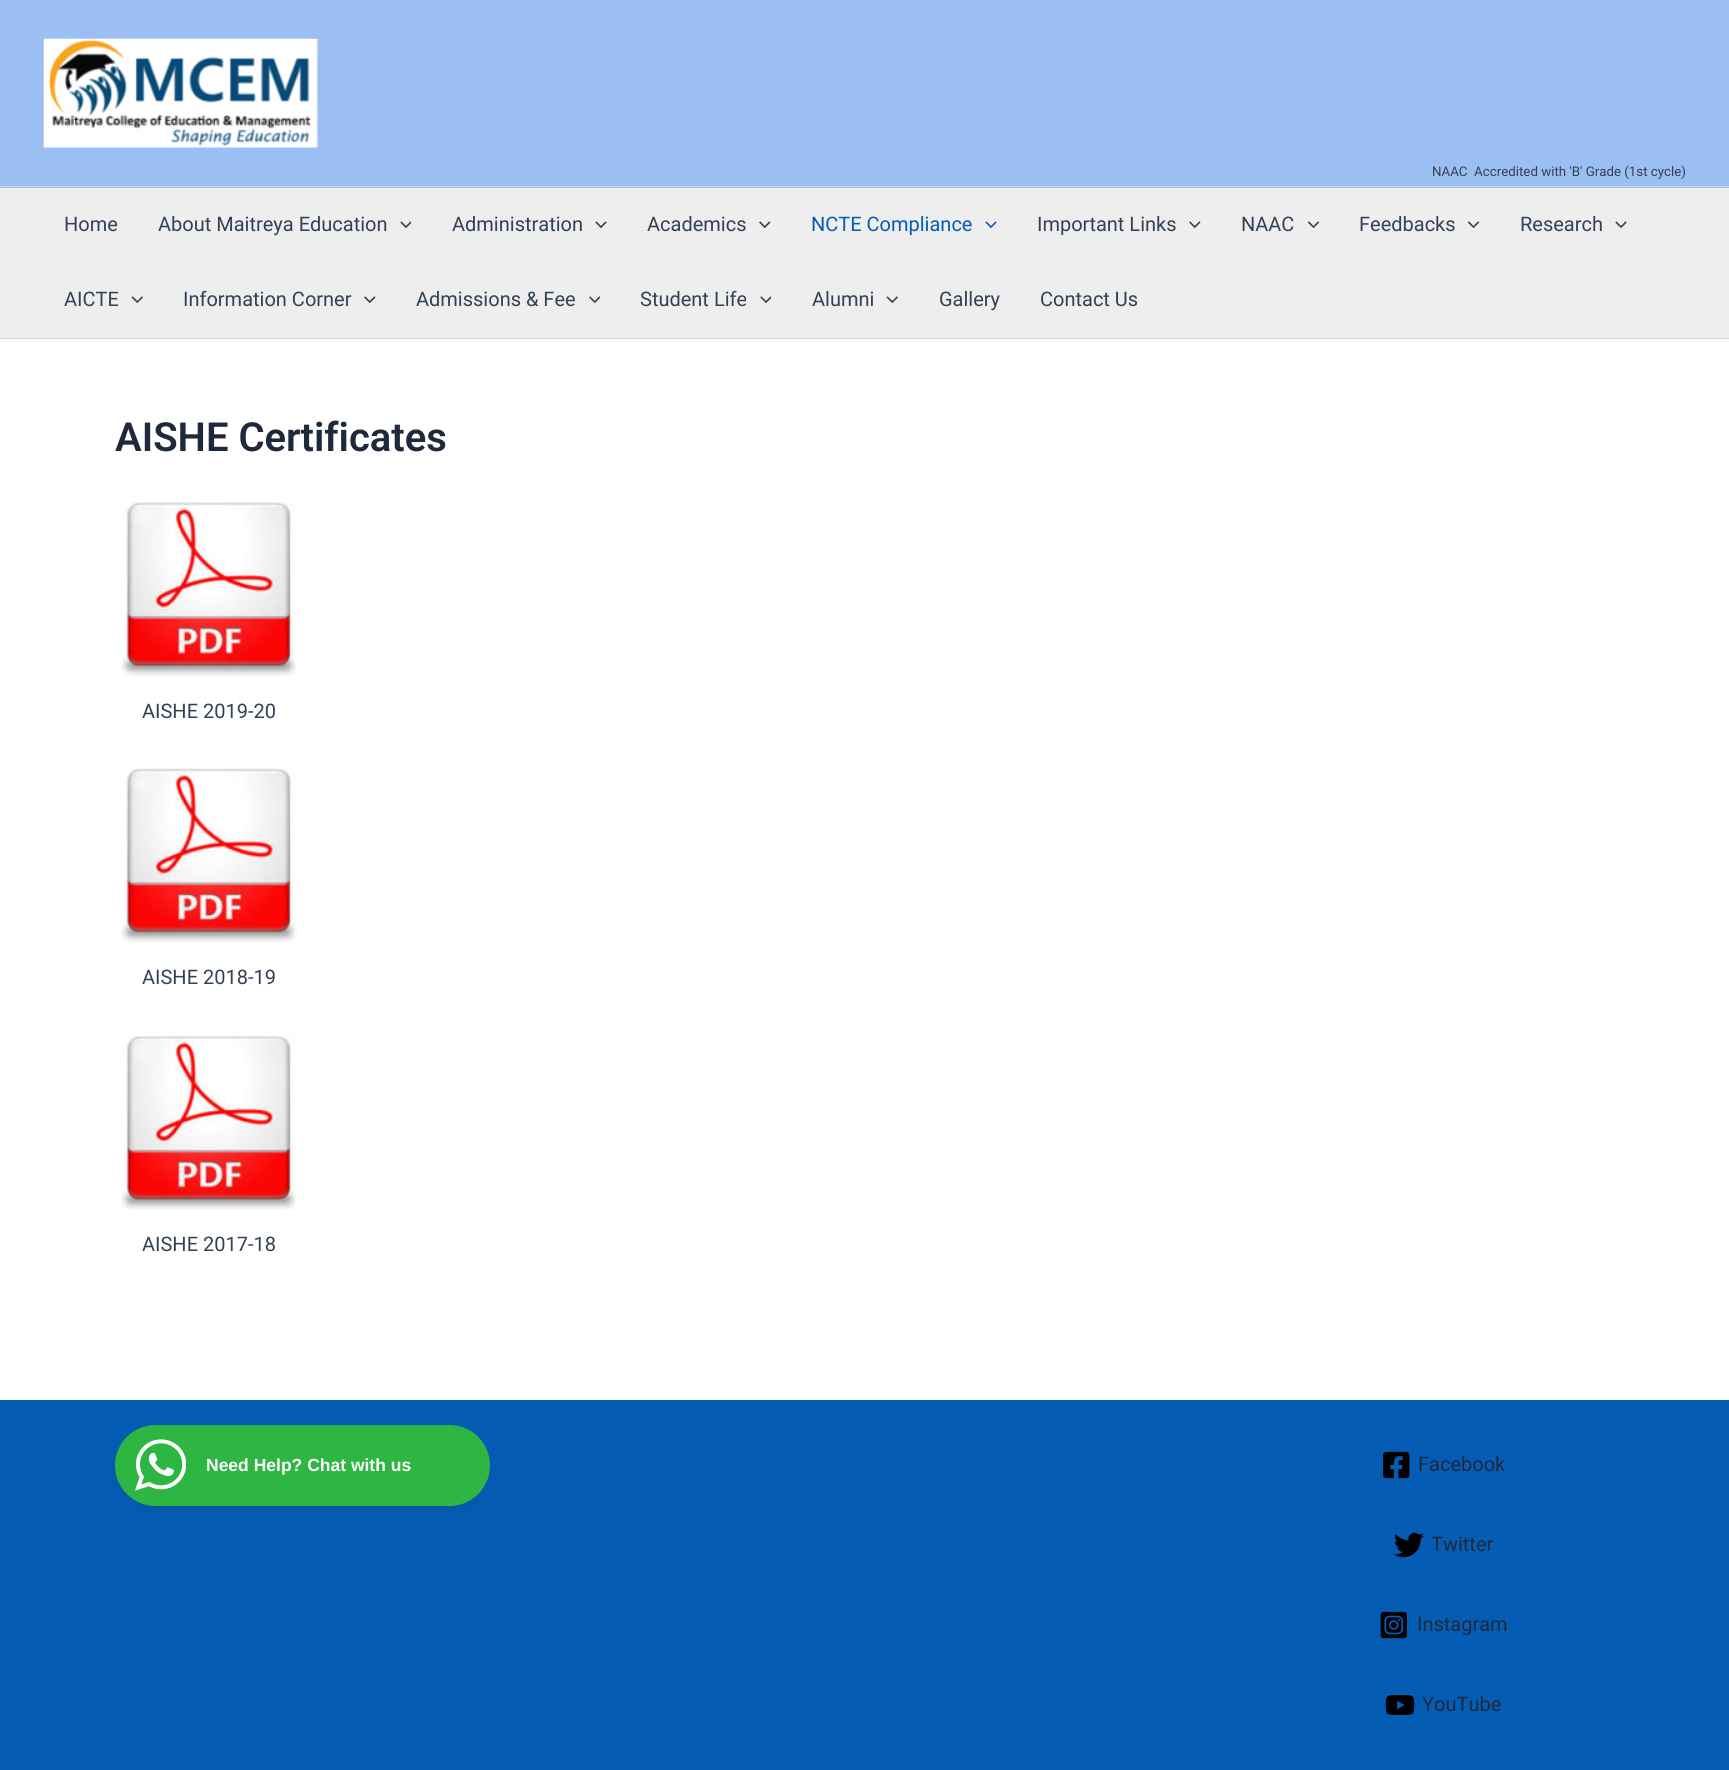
import math
import cairo

surface = cairo.ImageSurface(cairo.Format.RGB24, 1729, 1770)
ctx = cairo.Context(surface)
options = cairo.FontOptions()
options.set_hint_metrics(cairo.HintMetrics.OFF)
options.set_hint_style(cairo.HintStyle.NONE)
ctx.set_font_options(options)
ctx.set_miter_limit(4)


def ink(r, g, b):
    ctx.set_source_rgb(r / 255, g / 255, b / 255)


def write(x, y, s, family, size, color, bold=False, italic=False):
    ctx.select_font_face(family, cairo.FontSlant.ITALIC if italic else cairo.FontSlant.NORMAL, cairo.FontWeight.BOLD if bold else cairo.FontWeight.NORMAL)
    ctx.set_font_size(size)
    ink(*color)
    ctx.move_to(x, y)
    ctx.show_text(s)


def block(x, y, w, h, *color):
    ink(*color)
    ctx.rectangle(x, y, w, h)
    ctx.fill()


def round_path(x, y, w, h, r):
    ctx.new_sub_path()
    for i, (u, v) in enumerate([(x + w - r, y + h - r), (x + r, y + h - r), (x + r, y + r), (x + w - r, y + r)]):
        ctx.arc(u, v, r, i * math.pi / 2, (i + 1) * math.pi / 2)
    ctx.close_path()


def blur_box(x, y, w, h, r, blur, alpha):
    ctx.push_group_with_content(cairo.Content.ALPHA)
    ctx.set_operator(cairo.Operator.SOURCE)
    for i in range(15, -16, -2):
        e = blur * i / 6
        if min(w, h) + 2 * e > 0:
            ctx.set_source_rgba(0, 0, 0, alpha * math.erfc((i - 1) / 8.5) / 2)
            round_path(x - e, y - e, w + 2 * e, h + 2 * e, max(0, min(r + e + blur * .6, min(w, h) / 2 + e)))
            ctx.fill()
    ctx.mask(ctx.pop_group())


def paste(path, x, y, w, h):
    ctx.save()
    ctx.set_source_surface(cairo.ImageSurface.create_from_png(path), x, y)
    ctx.rectangle(x, y, w, h)
    ctx.fill()
    ctx.restore()


s1 = dict(family="Roboto", size=13.3, color=(51, 65, 85))
s2 = dict(family="Roboto", size=20, color=(51, 65, 85))
s3 = dict(family="Roboto", size=20, color=(4, 92, 180))
s4 = dict(family="Roboto SemiBold", size=40, color=(30, 41, 59))
s5 = dict(family="Liberation Sans", size=17.5, color=(255, 255, 255), bold=True)
s6 = dict(family="Roboto", size=20, color=(30, 41, 59))

ink(255, 255, 255)
ctx.paint()
block(0, 0, 1729, 188, 155, 190, 243)
block(0, 186, 1729, 1, 209, 213, 219)
paste("pic1.png", 43, 38, 275, 110)
write(1432, 176, "NAAC  Accredited with 'B' Grade (1st cycle)", **s1)
block(0, 188, 1729, 150, 238, 238, 238)
block(0, 338, 1729, 1, 209, 213, 219)
write(64, 231, "Home", **s2)
write(158, 231, "About Maitreya Education", **s2)
paste("pic2.png", 400, 221, 11, 8)
write(452, 231, "Administration", **s2)
paste("pic3.png", 595, 221, 12, 8)
write(647, 231, "Academics", **s2)
paste("pic4.png", 759, 221, 12, 8)
write(811, 231, "NCTE Compliance", **s3)
paste("pic5.png", 985, 221, 12, 8)
write(1037, 231, "Important Links", **s2)
paste("pic4.png", 1189, 221, 12, 8)
write(1241, 231, "NAAC", **s2)
paste("pic6.png", 1308, 221, 11, 8)
write(1359, 231, "Feedbacks", **s2)
paste("pic7.png", 1468, 221, 12, 8)
write(1520, 231, "Research", **s2)
paste("pic3.png", 1615, 221, 12, 8)
write(64, 306, "AICTE", **s2)
paste("pic8.png", 131, 296, 12, 8)
write(183, 306, "Information Corner", **s2)
paste("pic4.png", 364, 296, 12, 8)
write(416, 306, "Admissions & Fee", **s2)
paste("pic9.png", 589, 296, 11, 8)
write(640, 306, "Student Life", **s2)
paste("pic2.png", 760, 296, 11, 8)
write(812, 306, "Alumni", **s2)
paste("pic8.png", 886, 296, 12, 8)
write(939, 306, "Gallery", **s2)
write(1040, 306, "Contact Us", **s2)
write(115, 451, "AISHE Certificates", **s4)
paste("pic10.png", 121, 501, 176, 176)
write(142, 718, "AISHE 2019-20", **s2)
paste("pic11.png", 121, 767, 176, 176)
write(142, 984, "AISHE 2018-19", **s2)
paste("pic12.png", 121, 1035, 176, 175)
write(142, 1251, "AISHE 2017-18", **s2)
block(0, 1400, 1729, 370, 4, 92, 180)
ink(32, 32, 37)
blur_box(114, 1429, 377, 84, 42, 5, 0.09)
ink(45, 183, 66)
round_path(115, 1425, 375, 81, 40.5)
ctx.fill()
paste("pic13.png", 135, 1439, 51, 52)
write(206, 1471, "Need Help? Chat with us", **s5)
paste("pic14.png", 1383, 1451, 27, 28)
write(1418, 1471, "Facebook", **s6)
paste("pic15.png", 1394, 1532, 30, 26)
write(1431, 1551, "Twitter", **s6)
paste("pic16.png", 1380, 1611, 27, 28)
write(1417, 1631, "Instagram", **s6)
paste("pic17.png", 1385, 1695, 30, 20)
write(1422, 1711, "YouTube", **s6)
surface.write_to_png("screenshot.png")
